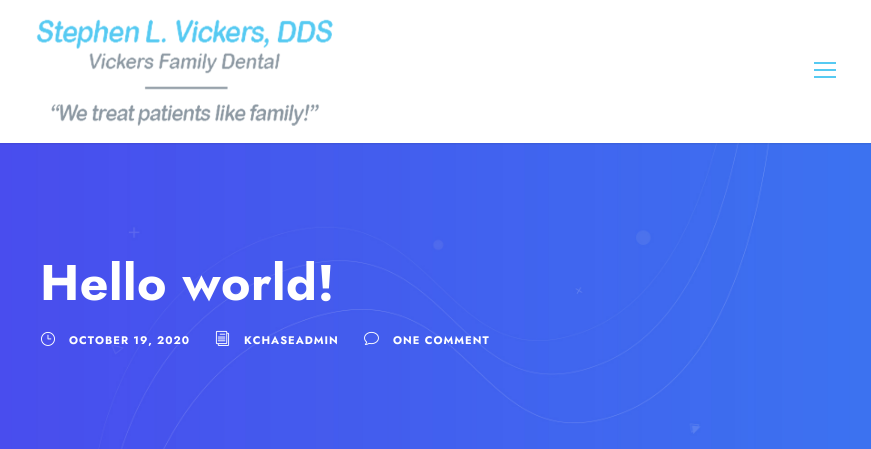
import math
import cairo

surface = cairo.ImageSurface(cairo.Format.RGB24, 871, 449)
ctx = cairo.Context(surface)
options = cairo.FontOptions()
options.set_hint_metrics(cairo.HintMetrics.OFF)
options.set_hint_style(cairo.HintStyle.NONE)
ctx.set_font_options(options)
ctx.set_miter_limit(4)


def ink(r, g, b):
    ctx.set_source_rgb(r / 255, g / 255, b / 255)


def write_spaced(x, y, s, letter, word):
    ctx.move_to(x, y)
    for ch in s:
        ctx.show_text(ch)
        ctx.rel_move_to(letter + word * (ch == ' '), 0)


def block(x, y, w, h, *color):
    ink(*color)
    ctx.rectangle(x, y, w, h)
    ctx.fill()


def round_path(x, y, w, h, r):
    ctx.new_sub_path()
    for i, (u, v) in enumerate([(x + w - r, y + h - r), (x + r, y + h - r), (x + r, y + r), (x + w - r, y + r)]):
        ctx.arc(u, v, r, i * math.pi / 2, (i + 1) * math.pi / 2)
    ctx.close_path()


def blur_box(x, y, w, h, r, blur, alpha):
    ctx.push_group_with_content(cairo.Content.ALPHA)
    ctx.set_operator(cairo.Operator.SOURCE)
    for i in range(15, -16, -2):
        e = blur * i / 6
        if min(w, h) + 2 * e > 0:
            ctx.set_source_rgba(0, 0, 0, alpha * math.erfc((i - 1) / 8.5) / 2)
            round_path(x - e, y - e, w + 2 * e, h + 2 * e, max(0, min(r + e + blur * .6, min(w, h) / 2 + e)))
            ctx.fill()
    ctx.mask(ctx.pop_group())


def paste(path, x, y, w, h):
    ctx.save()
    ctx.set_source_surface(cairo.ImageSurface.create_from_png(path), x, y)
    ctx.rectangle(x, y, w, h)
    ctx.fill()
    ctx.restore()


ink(255, 255, 255)
ctx.paint()
paste("pic2.png", 0, 143, 871, 306)
ctx.save()
ctx.rectangle(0, 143, 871, 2)
ctx.clip()
ink(0, 0, 0)
blur_box(0, 1, 871, 143, 0, 1, 0.1)
ctx.restore()
paste("pic1.png", 36, 19, 298, 107)
block(814, 62, 22, 2, 86, 202, 242)
block(814, 69, 22, 2, 86, 202, 242)
block(814, 76, 22, 2, 86, 202, 242)
ctx.select_font_face("Jost", cairo.FontSlant.NORMAL, cairo.FontWeight.BOLD)
ctx.set_font_size(50)
ink(255, 255, 255)
write_spaced(40, 300, "Hello world!", 0.5, 0)
paste("pic3.png", 41, 331, 14, 15)
ctx.set_font_size(11)
write_spaced(69, 344, "OCTOBER 19, 2020", 1, 0)
paste("pic4.png", 215, 330, 15, 16)
write_spaced(244, 344, "KCHASEADMIN", 1, 0)
paste("pic5.png", 364, 331, 15, 14)
write_spaced(393, 344, "ONE COMMENT", 1, 0)
surface.write_to_png("screenshot.png")
